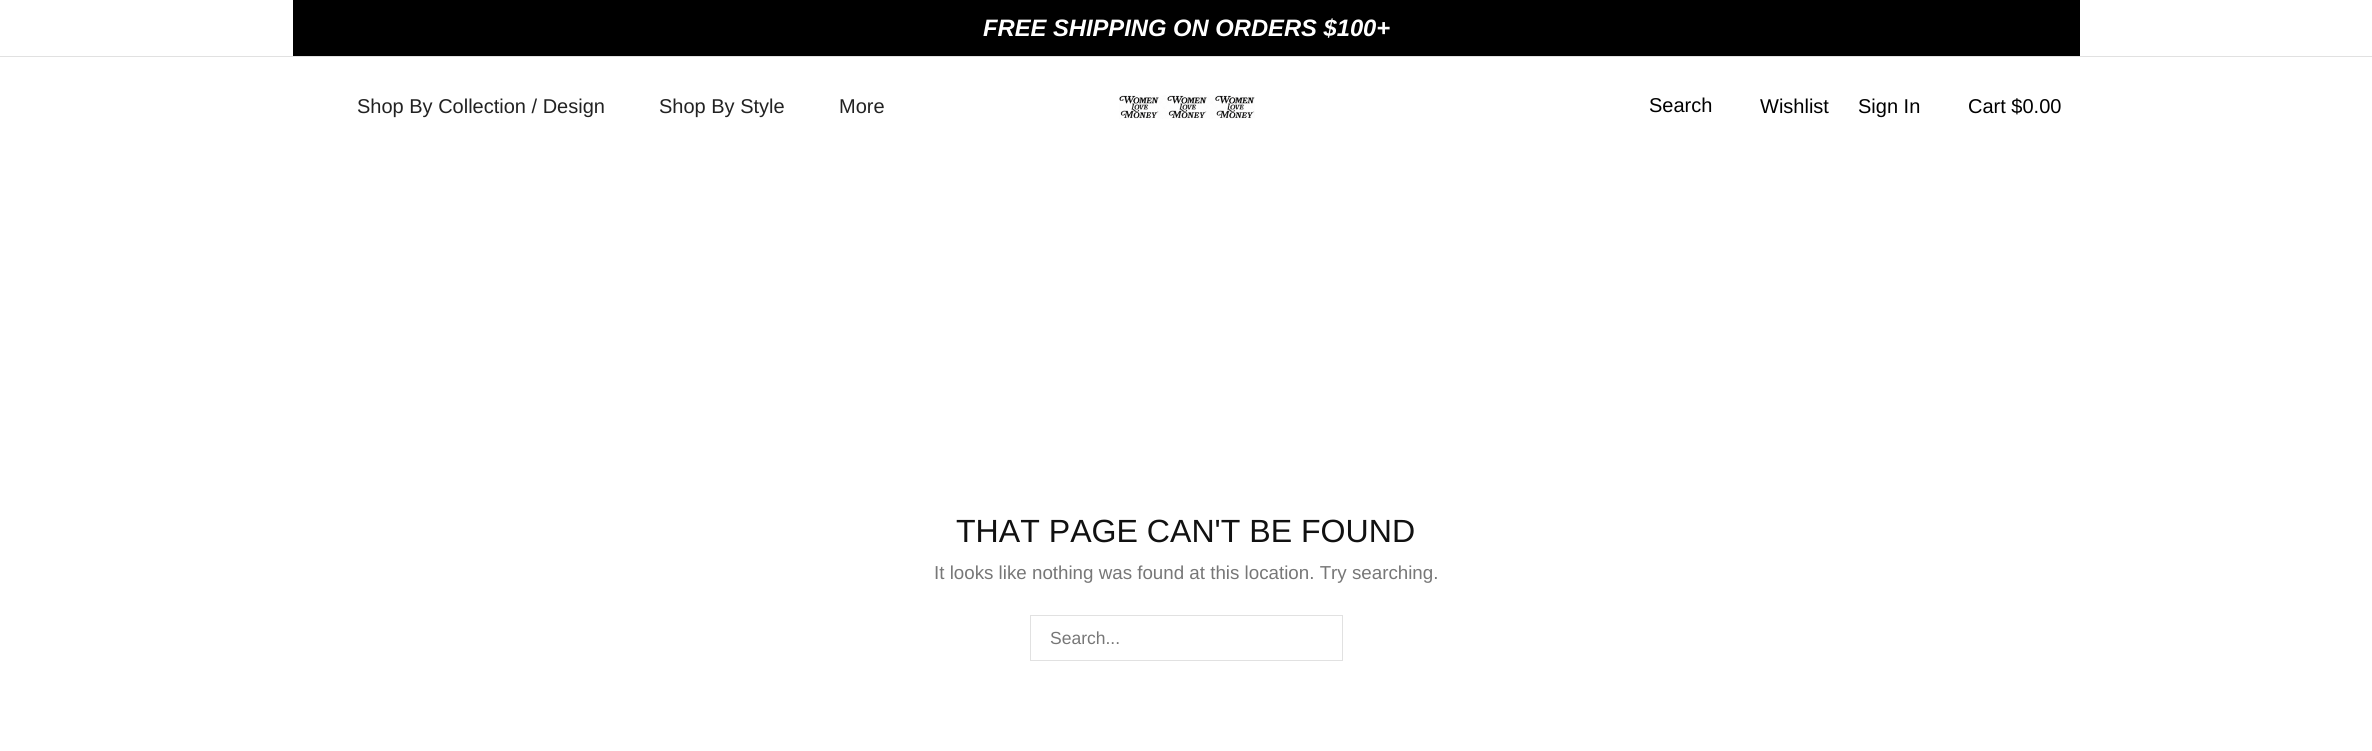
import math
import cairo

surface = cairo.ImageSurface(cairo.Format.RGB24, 2372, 751)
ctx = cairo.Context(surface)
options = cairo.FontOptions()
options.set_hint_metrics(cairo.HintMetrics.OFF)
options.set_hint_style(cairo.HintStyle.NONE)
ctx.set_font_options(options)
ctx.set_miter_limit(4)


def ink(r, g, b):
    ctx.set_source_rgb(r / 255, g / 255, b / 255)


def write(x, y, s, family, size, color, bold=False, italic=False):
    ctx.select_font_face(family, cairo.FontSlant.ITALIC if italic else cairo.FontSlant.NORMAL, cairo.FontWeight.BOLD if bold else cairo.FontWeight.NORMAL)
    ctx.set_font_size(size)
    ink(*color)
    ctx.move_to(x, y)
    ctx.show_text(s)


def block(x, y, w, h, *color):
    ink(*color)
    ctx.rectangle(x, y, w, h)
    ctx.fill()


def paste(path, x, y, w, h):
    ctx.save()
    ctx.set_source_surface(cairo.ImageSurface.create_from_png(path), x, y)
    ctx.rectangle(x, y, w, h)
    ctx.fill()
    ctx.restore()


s1 = dict(family="Liberation Sans", size=23.75, color=(255, 255, 255), bold=True, italic=True)
s2 = dict(family="Liberation Sans", size=20, color=(34, 34, 34))
s3 = dict(family="Liberation Sans", size=20, color=(0, 0, 0))
s4 = dict(family="Liberation Sans", size=32.1, color=(17, 17, 17))
s5 = dict(family="Liberation Sans", size=18.75, color=(119, 119, 119))
s6 = dict(family="Liberation Sans", size=17.5, color=(119, 119, 119))

ink(255, 255, 255)
ctx.paint()
block(293, 0, 1787, 56, 0, 0, 0)
write(983, 36, "FREE SHIPPING ON ORDERS $100+", **s1)
block(0, 56, 2372, 1, 225, 225, 225)
write(357, 113, "Shop By Collection / Design", **s2)
write(659, 113, "Shop By Style", **s2)
write(839, 113, "More", **s2)
paste("pic1.png", 1119, 95, 136, 24)
write(1649, 112, "Search", **s3)
write(1760, 113, "Wishlist", **s3)
write(1858, 113, "Sign In", **s3)
write(1968, 113, "Cart $0.00", **s3)
write(956, 542, "THAT PAGE CAN'T BE FOUND", **s4)
write(934, 579, "It looks like nothing was found at this location. Try searching.", **s5)
ctx.rectangle(1030.5, 615.5, 312, 45)
ink(225, 225, 225)
ctx.set_line_width(1)
ctx.stroke()
write(1050, 644, "Search...", **s6)
surface.write_to_png("screenshot.png")
